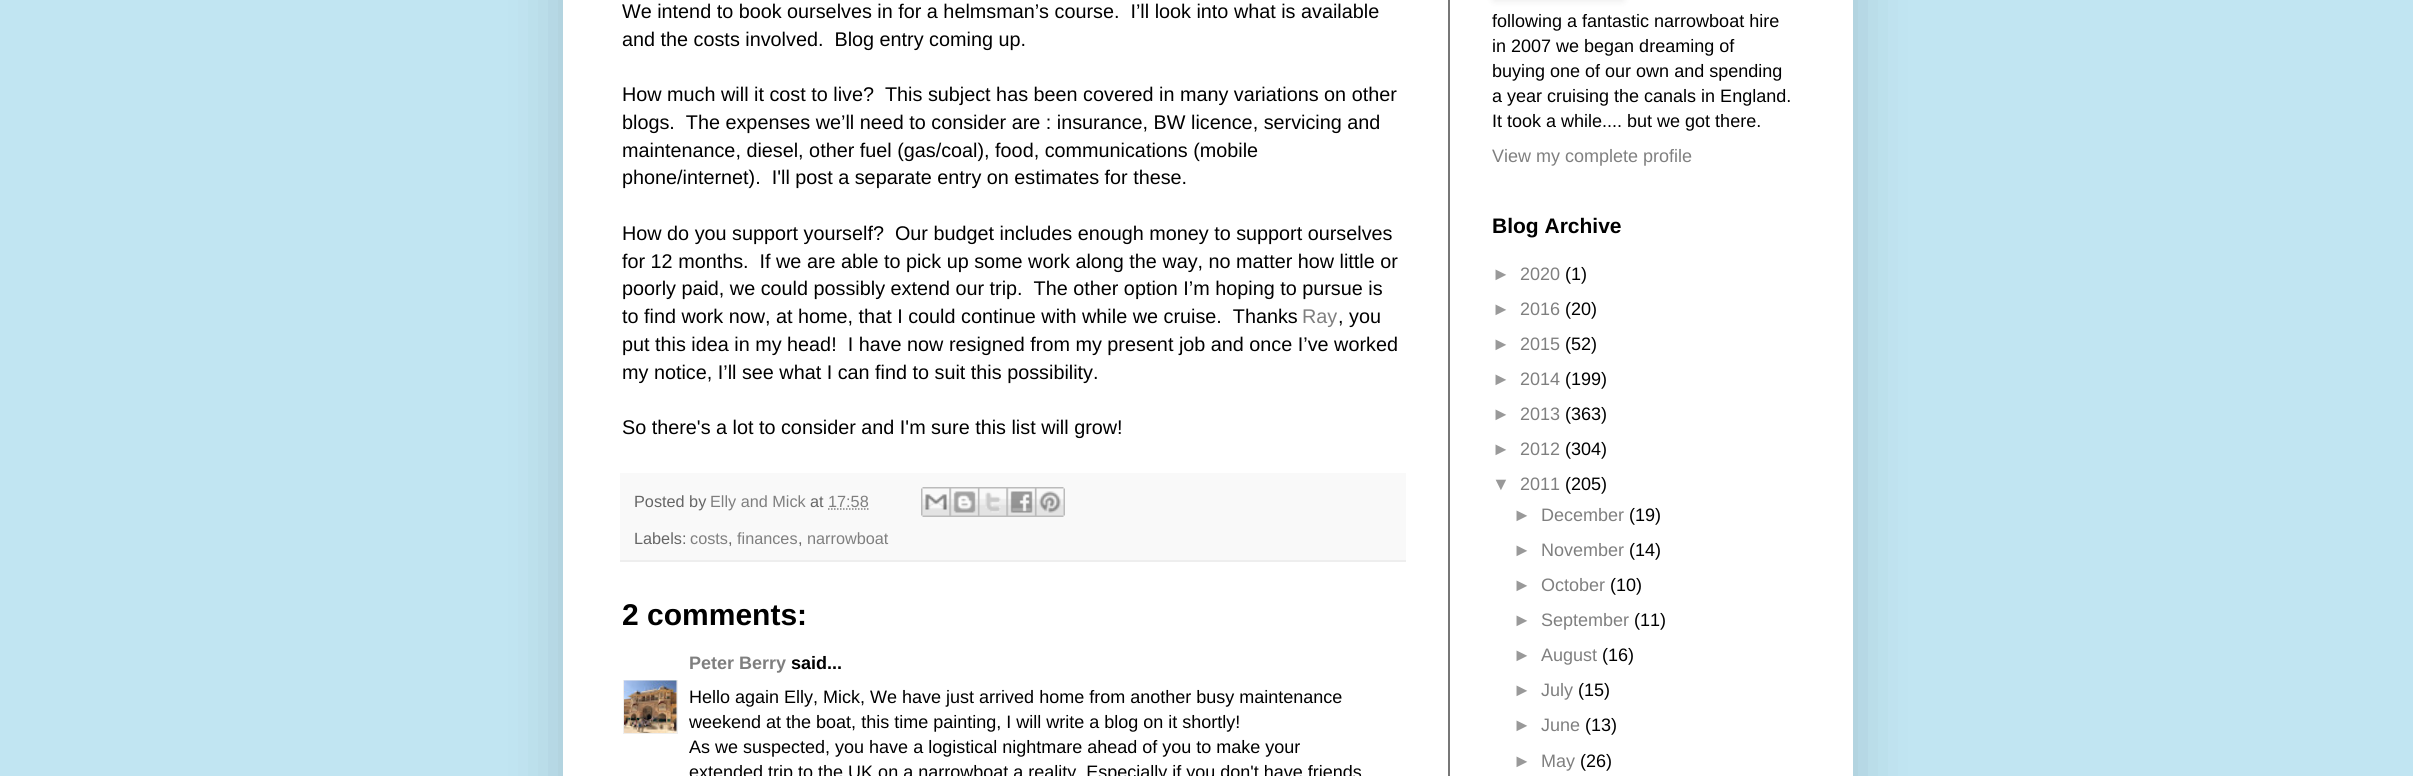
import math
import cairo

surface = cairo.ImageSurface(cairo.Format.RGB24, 2413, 776)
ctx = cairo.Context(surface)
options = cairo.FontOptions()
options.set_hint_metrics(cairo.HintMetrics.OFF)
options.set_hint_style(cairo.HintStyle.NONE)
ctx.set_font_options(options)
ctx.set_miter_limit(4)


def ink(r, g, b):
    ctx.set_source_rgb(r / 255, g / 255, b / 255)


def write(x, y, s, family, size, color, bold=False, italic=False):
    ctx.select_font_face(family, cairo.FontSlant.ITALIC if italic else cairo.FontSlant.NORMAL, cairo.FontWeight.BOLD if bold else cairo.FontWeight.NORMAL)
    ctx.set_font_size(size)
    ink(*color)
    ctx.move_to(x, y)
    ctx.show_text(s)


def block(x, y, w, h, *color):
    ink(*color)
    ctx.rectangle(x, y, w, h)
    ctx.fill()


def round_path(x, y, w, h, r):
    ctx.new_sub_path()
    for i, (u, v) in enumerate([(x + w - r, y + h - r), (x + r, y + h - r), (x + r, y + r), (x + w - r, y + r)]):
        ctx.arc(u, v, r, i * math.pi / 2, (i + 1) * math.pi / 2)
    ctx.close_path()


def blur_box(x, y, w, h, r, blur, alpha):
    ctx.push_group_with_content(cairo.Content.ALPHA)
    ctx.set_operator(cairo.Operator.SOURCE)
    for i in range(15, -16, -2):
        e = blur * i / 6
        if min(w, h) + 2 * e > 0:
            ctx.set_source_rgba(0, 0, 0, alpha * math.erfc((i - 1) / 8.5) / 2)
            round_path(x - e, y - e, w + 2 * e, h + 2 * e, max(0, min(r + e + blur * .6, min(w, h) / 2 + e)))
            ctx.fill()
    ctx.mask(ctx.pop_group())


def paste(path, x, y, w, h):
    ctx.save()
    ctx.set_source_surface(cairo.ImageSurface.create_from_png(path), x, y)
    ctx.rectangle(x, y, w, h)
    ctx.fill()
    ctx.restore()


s1 = dict(family="Liberation Sans", size=19.8, color=(0, 0, 0))
s2 = dict(family="Liberation Sans", size=19.8, color=(127, 127, 127))
s3 = dict(family="Liberation Sans", size=16.25, color=(102, 102, 102))
s4 = dict(family="Liberation Sans", size=16.25, color=(127, 127, 127))
s5 = dict(family="Liberation Sans", size=30, color=(0, 0, 0), bold=True)
s6 = dict(family="Liberation Sans", size=18, color=(127, 127, 127), bold=True)
s7 = dict(family="Liberation Sans", size=18, color=(0, 0, 0), bold=True)
s8 = dict(family="Liberation Sans", size=18, color=(0, 0, 0))
s9 = dict(family="Liberation Sans", size=18, color=(127, 127, 127))
s10 = dict(family="Liberation Sans", size=21, color=(0, 0, 0), bold=True)
s11 = dict(family="Liberation Sans", size=18, color=(153, 153, 153))

ink(193, 229, 242)
ctx.paint()
ink(0, 0, 0)
blur_box(563, -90, 1290, 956, 0, 30, 0.15)
block(563, 0, 1290, 776, 255, 255, 255)
block(1448, 0, 2, 776, 119, 119, 119)
write(622, 18, "We intend to book ourselves in for a helmsman’s course.  I’ll look into what is available", **s1)
write(622, 46, "and the costs involved.  Blog entry coming up.", **s1)
write(622, 101, "How much will it cost to live?  This subject has been covered in many variations on other", **s1)
write(622, 129, "blogs.  The expenses we’ll need to consider are : insurance, BW licence, servicing and", **s1)
write(622, 157, "maintenance, diesel, other fuel (gas/coal), food, communications (mobile", **s1)
write(622, 184, "phone/internet).  I'll post a separate entry on estimates for these.", **s1)
write(622, 240, "How do you support yourself?  Our budget includes enough money to support ourselves", **s1)
write(622, 268, "for 12 months.  If we are able to pick up some work along the way, no matter how little or", **s1)
write(622, 295, "poorly paid, we could possibly extend our trip.  The other option I’m hoping to pursue is", **s1)
write(622, 323, "to find work now, at home, that I could continue with while we cruise.  Thanks", **s1)
write(1302, 323, "Ray", **s2)
write(1338, 323, ", you", **s1)
write(622, 351, "put this idea in my head!  I have now resigned from my present job and once I’ve worked", **s1)
write(622, 379, "my notice, I’ll see what I can find to suit this possibility.", **s1)
write(622, 434, "So there's a lot to consider and I'm sure this list will grow!", **s1)
block(620, 473, 786, 87, 249, 249, 249)
block(620, 560, 786, 2, 238, 238, 238)
write(634, 507, "Posted by", **s3)
write(710, 507, "Elly and Mick", **s4)
write(810, 507, "at", **s3)
write(828, 507, "17:58", **s4)
ctx.new_path()
ctx.move_to(828, 509)
ctx.line_to(869, 509)
ctx.set_line_width(1.5)
ctx.set_dash([1.5, 1.5])
ctx.stroke()
paste("pic1.png", 921, 487, 29, 30)
paste("pic2.png", 949, 487, 29, 30)
paste("pic3.png", 978, 487, 29, 30)
paste("pic4.png", 1006, 487, 29, 30)
paste("pic5.png", 1035, 487, 30, 30)
write(634, 544, "Labels:", **s3)
write(690, 544, "costs", **s4)
write(728, 544, ",", **s3)
write(737, 544, "finances", **s4)
write(798, 544, ",", **s3)
write(807, 544, "narrowboat", **s4)
write(622, 625, "2 comments:", **s5)
write(689, 669, "Peter Berry", **s6)
write(791, 669, "said...", **s7)
ctx.save()
ctx.rectangle(623, 680, 55, 54)
ctx.clip()
ctx.rectangle(624, 681, 53, 53)
ink(238, 238, 238)
ctx.set_line_width(2)
ctx.set_dash([])
ctx.stroke()
ctx.restore()
paste("pic6.png", 624, 680, 53, 53)
write(689, 703, "Hello again Elly, Mick, We have just arrived home from another busy maintenance", **s8)
write(689, 728, "weekend at the boat, this time painting, I will write a blog on it shortly!", **s8)
write(689, 753, "As we suspected, you have a logistical nightmare ahead of you to make your", **s8)
write(689, 778, "extended trip to the UK on a narrowboat a reality. Especially if you don't have friends", **s8)
ink(0, 0, 0)
blur_box(1494, -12, 129, 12, 0, 4, 0.1)
write(1492, 27, "following a fantastic narrowboat hire", **s8)
write(1492, 52, "in 2007 we began dreaming of", **s8)
write(1492, 77, "buying one of our own and spending", **s8)
write(1492, 102, "a year cruising the canals in England.", **s8)
write(1492, 127, "It took a while.... but we got there.", **s8)
write(1492, 162, "View my complete profile", **s9)
write(1492, 233, "Blog Archive", **s10)
write(1492, 280, "►", **s11)
write(1520, 280, "2020", **s9)
write(1565, 280, "(1)", **s8)
write(1492, 315, "►", **s11)
write(1520, 315, "2016", **s9)
write(1565, 315, "(20)", **s8)
write(1492, 350, "►", **s11)
write(1520, 350, "2015", **s9)
write(1565, 350, "(52)", **s8)
write(1492, 385, "►", **s11)
write(1520, 385, "2014", **s9)
write(1565, 385, "(199)", **s8)
write(1492, 420, "►", **s11)
write(1520, 420, "2013", **s9)
write(1565, 420, "(363)", **s8)
write(1492, 455, "►", **s11)
write(1520, 455, "2012", **s9)
write(1565, 455, "(304)", **s8)
write(1492, 490, "▼", **s11)
write(1520, 490, "2011", **s9)
write(1565, 490, "(205)", **s8)
write(1513, 521, "►", **s11)
write(1541, 521, "December", **s9)
write(1629, 521, "(19)", **s8)
write(1513, 556, "►", **s11)
write(1541, 556, "November", **s9)
write(1629, 556, "(14)", **s8)
write(1513, 591, "►", **s11)
write(1541, 591, "October", **s9)
write(1610, 591, "(10)", **s8)
write(1513, 626, "►", **s11)
write(1541, 626, "September", **s9)
write(1634, 626, "(11)", **s8)
write(1513, 661, "►", **s11)
write(1541, 661, "August", **s9)
write(1602, 661, "(16)", **s8)
write(1513, 696, "►", **s11)
write(1541, 696, "July", **s9)
write(1578, 696, "(15)", **s8)
write(1513, 731, "►", **s11)
write(1541, 731, "June", **s9)
write(1585, 731, "(13)", **s8)
write(1513, 767, "►", **s11)
write(1541, 767, "May", **s9)
write(1580, 767, "(26)", **s8)
surface.write_to_png("screenshot.png")
